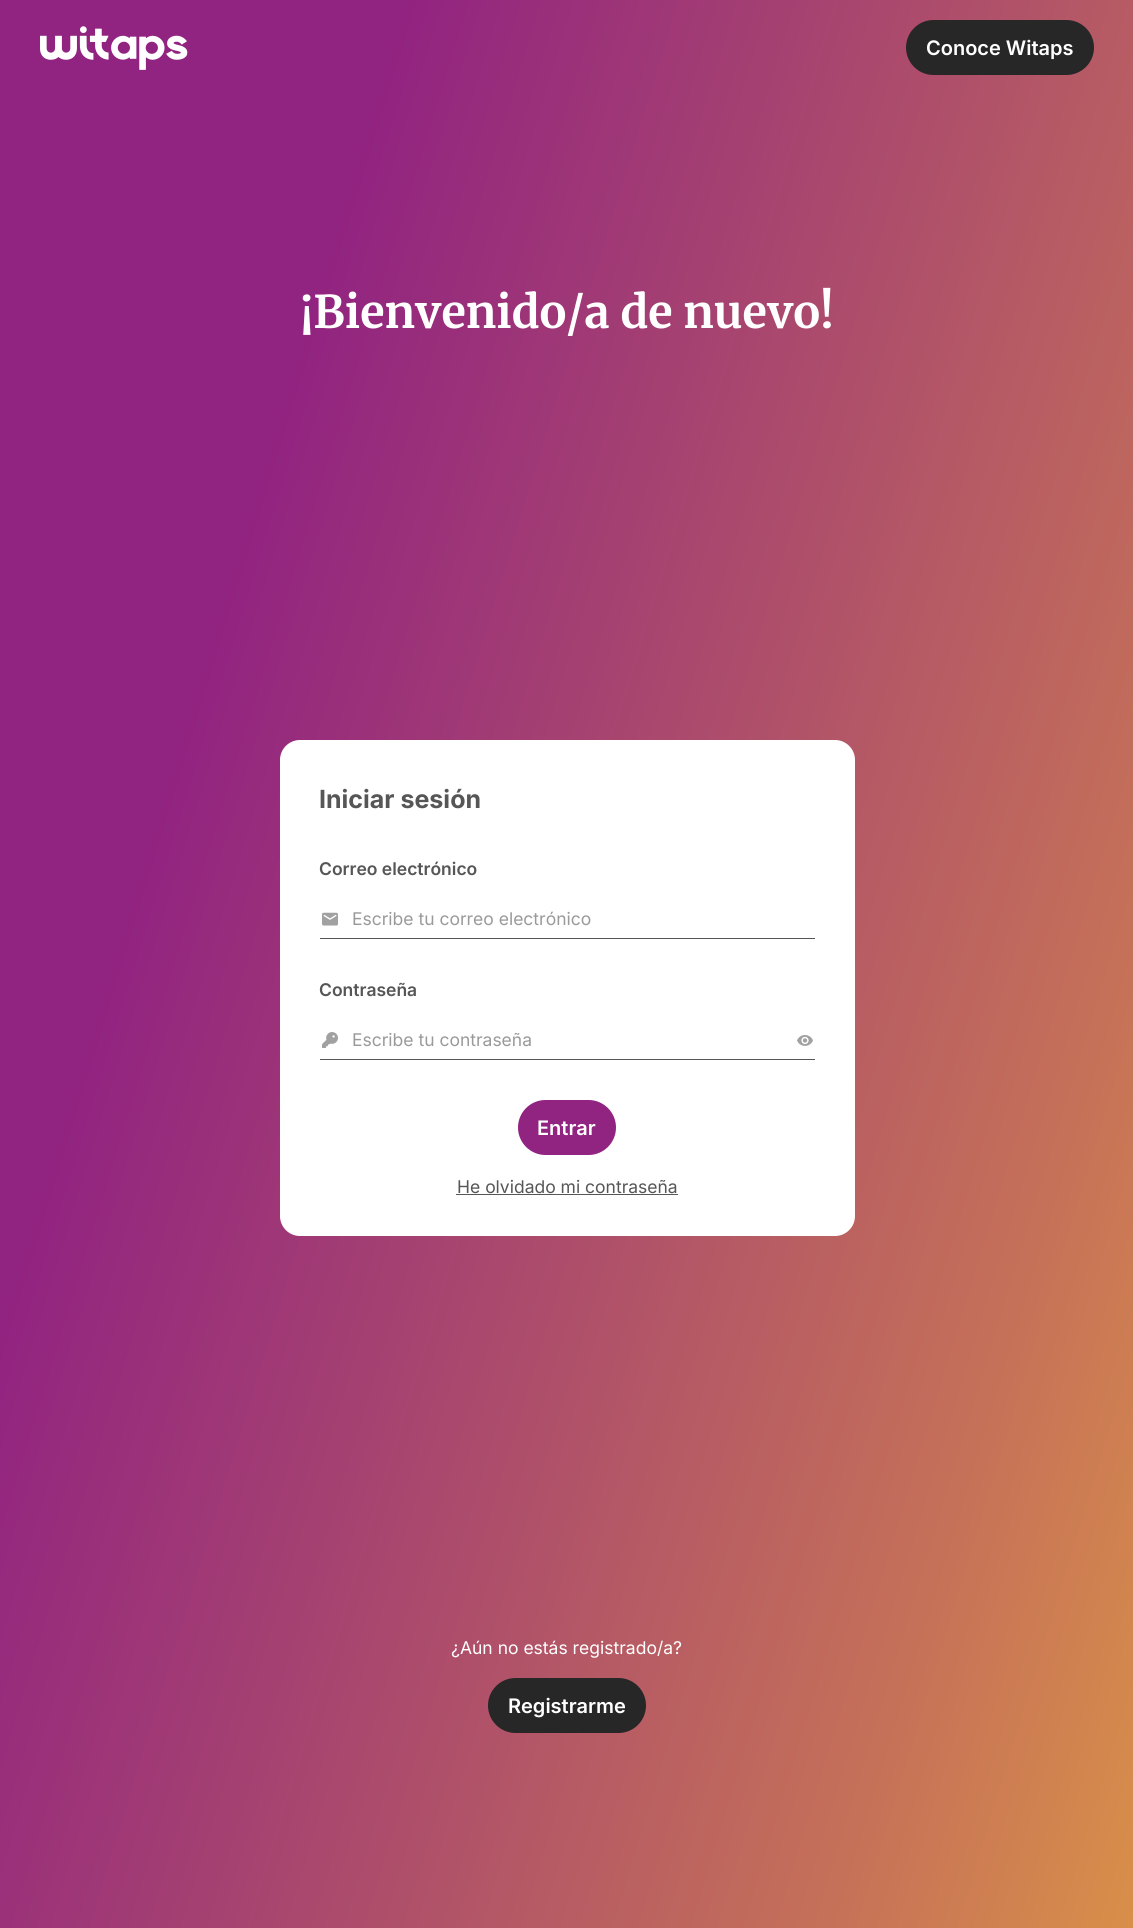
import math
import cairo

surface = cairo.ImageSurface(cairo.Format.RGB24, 1133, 1928)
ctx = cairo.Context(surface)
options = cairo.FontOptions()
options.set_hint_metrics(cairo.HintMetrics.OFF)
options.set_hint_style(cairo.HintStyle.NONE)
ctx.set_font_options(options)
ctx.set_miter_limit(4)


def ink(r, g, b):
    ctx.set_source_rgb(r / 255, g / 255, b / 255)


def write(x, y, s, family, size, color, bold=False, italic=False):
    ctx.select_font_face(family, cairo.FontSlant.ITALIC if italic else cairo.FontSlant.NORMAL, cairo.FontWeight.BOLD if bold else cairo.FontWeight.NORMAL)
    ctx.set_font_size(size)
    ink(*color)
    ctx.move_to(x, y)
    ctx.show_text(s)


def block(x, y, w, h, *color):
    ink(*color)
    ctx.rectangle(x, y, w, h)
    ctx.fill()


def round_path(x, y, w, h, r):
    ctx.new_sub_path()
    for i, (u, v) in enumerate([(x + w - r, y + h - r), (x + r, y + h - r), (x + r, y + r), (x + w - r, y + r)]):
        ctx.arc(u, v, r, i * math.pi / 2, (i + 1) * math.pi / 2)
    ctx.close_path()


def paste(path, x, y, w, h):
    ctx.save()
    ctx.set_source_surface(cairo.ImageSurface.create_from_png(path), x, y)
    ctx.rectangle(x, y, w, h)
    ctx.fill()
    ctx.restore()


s1 = dict(family="Inter SemiBold", size=20, color=(255, 255, 255))
s2 = dict(family="Merriweather", size=45, color=(255, 255, 255), bold=True)
s3 = dict(family="Inter", size=25, color=(86, 86, 86), bold=True)
s4 = dict(family="Inter SemiBold", size=17.5, color=(86, 86, 86))
s5 = dict(family="Inter", size=17.5, color=(154, 154, 154))
s6 = dict(family="Inter", size=17.5, color=(86, 86, 86))
s7 = dict(family="Inter", size=17.5, color=(255, 255, 255))

ink(255, 255, 255)
ctx.paint()
gradient = cairo.LinearGradient(-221, 723, 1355, 1205)
gradient.add_color_stop_rgba(0.23, 0.569, 0.137, 0.506, 1)
gradient.add_color_stop_rgba(0.83, 0.776, 0.447, 0.345, 1)
gradient.add_color_stop_rgba(1, 0.851, 0.561, 0.286, 1)
ctx.set_source(gradient)
ctx.rectangle(0, 0, 1133, 1928)
ctx.fill()
paste("pic1.png", 40, 26, 148, 44)
ink(39, 39, 39)
round_path(906, 20, 188, 55, 27.5)
ctx.fill()
write(926, 55, "Conoce Witaps", **s1)
write(300, 328, "¡Bienvenido/a de nuevo!", **s2)
round_path(280, 740, 575, 496, 20)
ctx.fill()
write(319, 808, "Iniciar sesión", **s3)
write(319, 875, "Correo electrónico", **s4)
block(320, 938, 495, 1, 86, 86, 86)
paste("pic2.png", 322, 912, 16, 14)
write(352, 925, "Escribe tu correo electrónico", **s5)
write(319, 996, "Contraseña", **s4)
block(320, 1059, 495, 1, 86, 86, 86)
paste("pic3.png", 322, 1032, 16, 16)
write(352, 1046, "Escribe tu contraseña", **s5)
paste("pic4.png", 797, 1035, 16, 11)
ink(145, 35, 129)
round_path(518, 1100, 98, 55, 27.5)
ctx.fill()
write(537, 1135, "Entrar", **s1)
write(457, 1193, "He olvidado mi contraseña", **s6)
block(456, 1194, 222, 1, 86, 86, 86)
write(451, 1654, "¿Aún no estás registrado/a?", **s7)
ink(39, 39, 39)
round_path(488, 1678, 158, 55, 27.5)
ctx.fill()
write(508, 1713, "Registrarme", **s1)
surface.write_to_png("screenshot.png")
